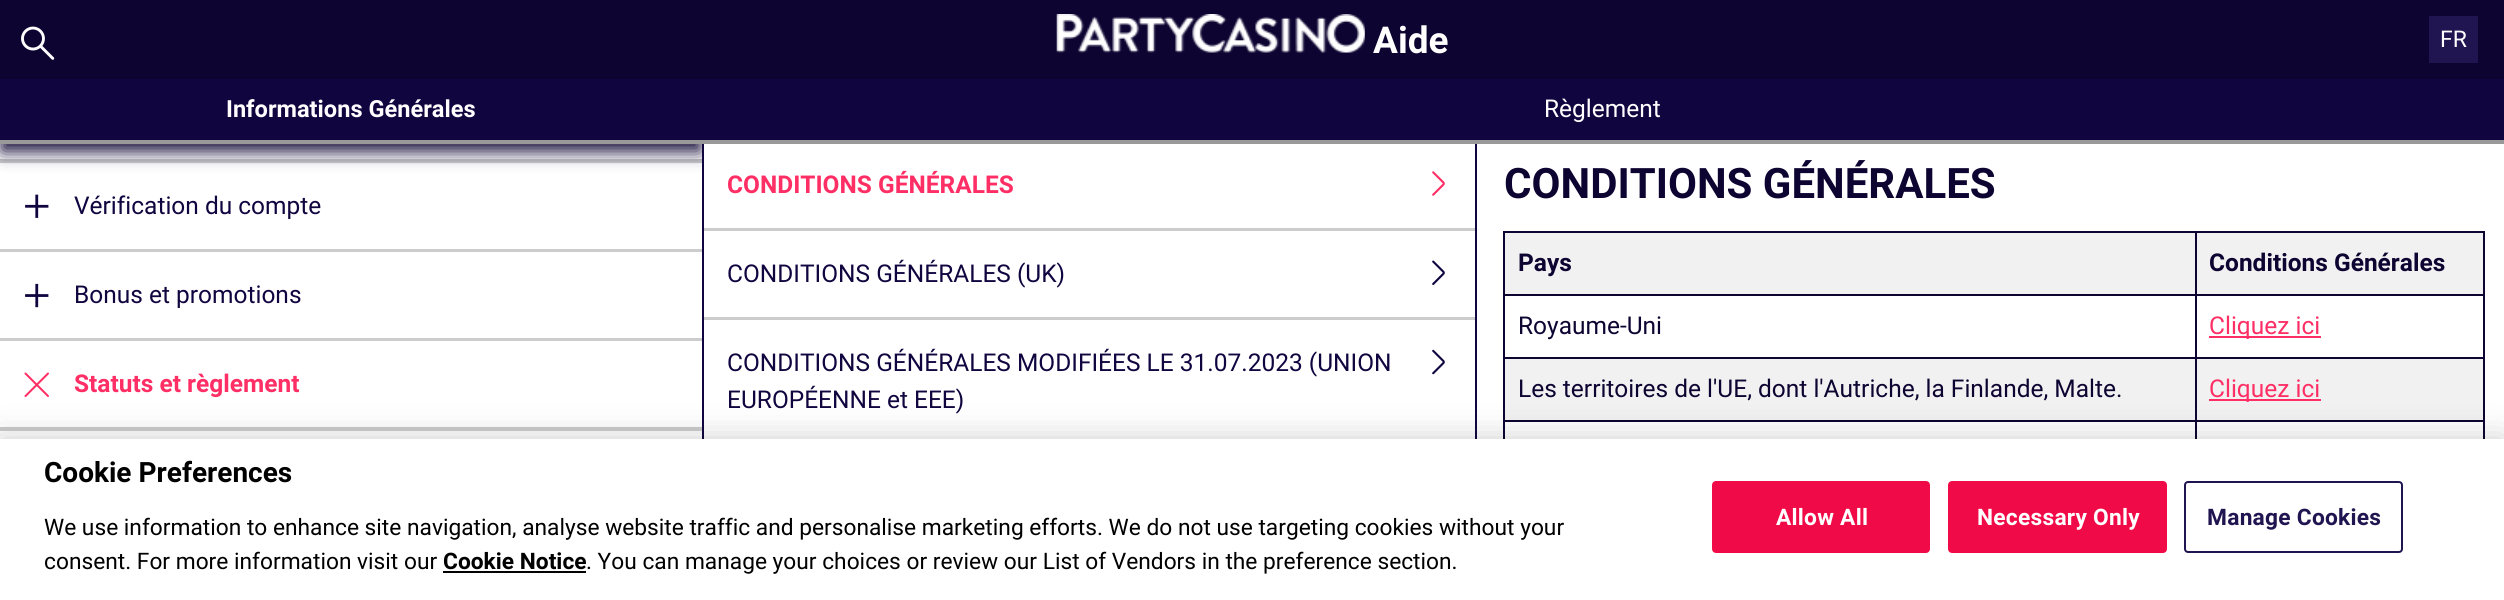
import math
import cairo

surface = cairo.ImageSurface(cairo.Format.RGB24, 2504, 600)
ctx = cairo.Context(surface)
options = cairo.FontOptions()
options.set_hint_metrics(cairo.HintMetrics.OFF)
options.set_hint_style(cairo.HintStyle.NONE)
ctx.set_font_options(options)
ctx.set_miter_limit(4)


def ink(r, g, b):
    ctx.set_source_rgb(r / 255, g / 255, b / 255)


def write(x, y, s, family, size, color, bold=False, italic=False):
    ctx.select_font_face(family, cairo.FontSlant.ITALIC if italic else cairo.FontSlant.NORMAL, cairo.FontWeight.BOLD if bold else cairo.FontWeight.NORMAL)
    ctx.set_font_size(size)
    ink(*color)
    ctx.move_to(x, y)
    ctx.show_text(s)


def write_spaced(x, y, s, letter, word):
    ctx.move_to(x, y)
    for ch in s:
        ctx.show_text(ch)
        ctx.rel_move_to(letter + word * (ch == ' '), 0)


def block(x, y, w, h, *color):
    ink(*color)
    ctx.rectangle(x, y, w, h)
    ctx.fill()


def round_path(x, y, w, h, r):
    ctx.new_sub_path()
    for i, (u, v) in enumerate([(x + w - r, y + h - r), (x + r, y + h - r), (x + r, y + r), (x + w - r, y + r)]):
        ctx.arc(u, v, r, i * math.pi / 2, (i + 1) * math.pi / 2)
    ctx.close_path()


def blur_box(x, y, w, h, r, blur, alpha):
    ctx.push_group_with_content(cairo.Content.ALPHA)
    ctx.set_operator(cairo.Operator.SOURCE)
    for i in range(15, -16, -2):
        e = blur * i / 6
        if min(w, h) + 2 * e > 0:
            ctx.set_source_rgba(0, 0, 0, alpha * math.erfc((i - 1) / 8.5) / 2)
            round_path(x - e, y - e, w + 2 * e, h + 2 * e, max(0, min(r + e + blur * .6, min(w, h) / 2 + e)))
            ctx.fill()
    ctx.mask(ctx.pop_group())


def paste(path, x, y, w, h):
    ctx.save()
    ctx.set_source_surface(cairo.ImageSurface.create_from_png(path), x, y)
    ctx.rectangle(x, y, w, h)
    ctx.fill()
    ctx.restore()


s1 = dict(family="Roboto", size=37, color=(255, 255, 255), bold=True)
s2 = dict(family="Roboto", size=23, color=(255, 255, 255))
s3 = dict(family="Roboto", size=23.6, color=(255, 255, 255), bold=True)
s4 = dict(family="Roboto", size=24.5, color=(17, 5, 64))
s5 = dict(family="Roboto", size=24.5, color=(255, 46, 101), bold=True)
s6 = dict(family="Roboto", size=24.5, color=(255, 255, 255))
s7 = dict(family="Roboto", size=42, color=(13, 4, 49), bold=True)
s8 = dict(family="Roboto", size=24.5, color=(13, 4, 49), bold=True)
s9 = dict(family="Roboto", size=24.5, color=(13, 4, 49))
s10 = dict(family="Roboto", size=24.5, color=(255, 46, 101))
s11 = dict(family="Roboto", size=28, color=(0, 0, 0), bold=True)
s12 = dict(family="Roboto", size=22.75, color=(0, 0, 0))
s13 = dict(family="Roboto", size=22.75, color=(0, 0, 0), bold=True)

ink(255, 255, 255)
ctx.paint()
block(0, 159, 702, 4, 204, 204, 204)
block(702, 144, 2, 295, 17, 5, 64)
ctx.save()
ctx.rectangle(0, 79, 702, 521)
ctx.clip()
ink(13, 4, 49)
blur_box(2, 89, 698, 62, 0, 9, 1)
ctx.restore()
block(0, 0, 2504, 79, 13, 4, 49)
paste("pic1.png", 21, 26, 34, 34)
paste("pic2.png", 1056, 14, 309, 39)
write(1373, 53, "Aide", **s1)
block(2429, 16, 49, 47, 33, 21, 81)
write(2440, 47, "FR", **s2)
block(0, 79, 2504, 61, 17, 5, 64)
block(1475, 142, 2, 297, 17, 5, 64)
block(0, 140, 2504, 4, 153, 153, 153)
write(226, 117, "Informations Générales", **s3)
block(0, 249, 702, 3, 204, 204, 204)
paste("pic3.png", 25, 194, 24, 24)
write(74, 214, "Vérification du compte", **s4)
block(0, 338, 702, 3, 204, 204, 204)
paste("pic4.png", 25, 283, 24, 25)
write(74, 303, "Bonus et promotions", **s4)
paste("pic5.png", 24, 372, 25, 25)
write(74, 392, "Statuts et règlement", **s5)
block(0, 427, 702, 4, 204, 204, 204)
write(1544, 117, "Règlement", **s6)
block(704, 228, 771, 3, 204, 204, 204)
write(727, 193, "CONDITIONS GÉNÉRALES", **s5)
paste("pic6.png", 1432, 171, 13, 25)
block(704, 317, 771, 3, 204, 204, 204)
write(727, 282, "CONDITIONS GÉNÉRALES (UK)", **s4)
paste("pic7.png", 1432, 260, 13, 25)
write(727, 371, "CONDITIONS GÉNÉRALES MODIFIÉES LE 31.07.2023 (UNION", **s4)
paste("pic8.png", 1432, 349, 13, 26)
write(727, 408, "EUROPÉENNE et EEE)", **s4)
write(1504, 198, "CONDITIONS GÉNÉRALES", **s7)
block(1503, 231, 982, 2, 13, 4, 49)
block(2483, 231, 2, 208, 13, 4, 49)
block(1503, 231, 2, 208, 13, 4, 49)
block(1505, 233, 978, 61, 241, 241, 241)
write(1518, 271, "Pays", **s8)
block(2195, 294, 290, 2, 13, 4, 49)
block(2195, 357, 290, 2, 13, 4, 49)
block(1505, 359, 978, 61, 241, 241, 241)
block(2195, 420, 290, 2, 13, 4, 49)
block(2195, 420, 2, 19, 13, 4, 49)
block(1503, 420, 693, 2, 13, 4, 49)
block(2195, 357, 2, 65, 13, 4, 49)
block(1503, 357, 693, 2, 13, 4, 49)
block(2195, 294, 2, 65, 13, 4, 49)
block(1503, 294, 693, 2, 13, 4, 49)
block(2195, 231, 2, 65, 13, 4, 49)
write(2209, 271, "Conditions Générales", **s8)
write(1518, 334, "Royaume-Uni", **s9)
block(2209, 336, 112, 2, 255, 46, 101)
write(2209, 334, "Cliquez ici", **s10)
write(1518, 397, "Les territoires de l'UE, dont l'Autriche, la Finlande, Malte.", **s9)
block(2209, 399, 112, 2, 255, 46, 101)
write(2209, 397, "Cliquez ici", **s10)
ink(0, 0, 0)
blur_box(0, 439, 2504, 161, 0, 16, 0.2)
block(0, 439, 2504, 161, 255, 255, 255)
write(44, 482, "Cookie Preferences", **s11)
write(44, 535, "We use information to enhance site navigation, analyse website traffic and personalise marketing efforts. We do not use targeting cookies without your", **s12)
write(44, 569, "consent. For more information visit our", **s12)
write(443, 569, "Cookie Notice", **s13)
block(443, 571, 143, 2, 0, 0, 0)
write(586, 569, ". You can manage your choices or review our List of Vendors in the preference section.", **s12)
ink(240, 10, 71)
round_path(1713, 482, 216, 70, 3)
ctx.fill_preserve()
ctx.stroke()
ctx.select_font_face("Roboto", cairo.FontSlant.NORMAL, cairo.FontWeight.BOLD)
ink(255, 255, 255)
write_spaced(1776, 525, "Allow All", 0.25, 0)
ink(240, 10, 71)
round_path(1949, 482, 217, 70, 3)
ctx.fill_preserve()
ctx.stroke()
ink(255, 255, 255)
write_spaced(1977, 525, "Necessary Only", 0.25, 0)
round_path(2185, 482, 217, 70, 3)
ink(33, 21, 81)
ctx.stroke()
write_spaced(2207, 525, "Manage Cookies", 0.25, 0)
surface.write_to_png("screenshot.png")
